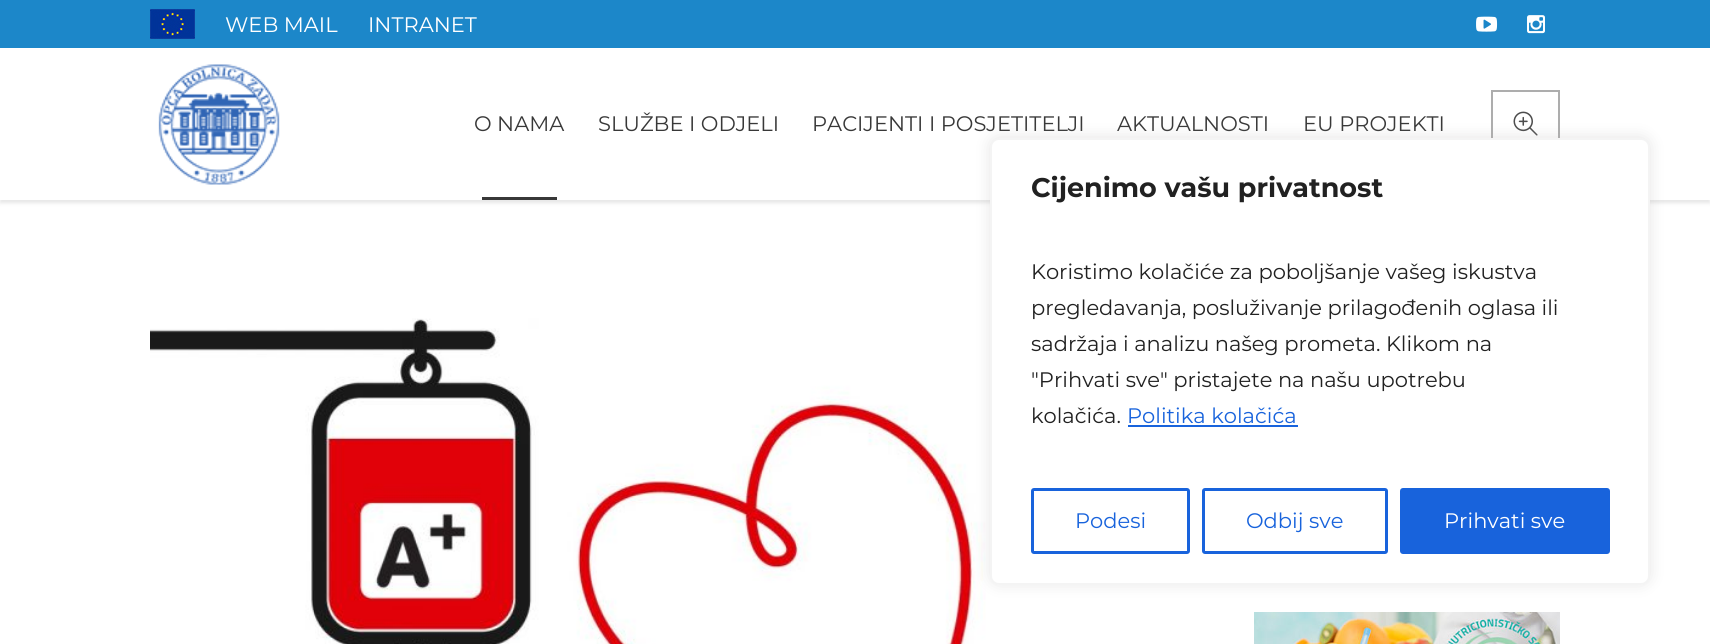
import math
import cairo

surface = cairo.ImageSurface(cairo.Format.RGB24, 1710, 644)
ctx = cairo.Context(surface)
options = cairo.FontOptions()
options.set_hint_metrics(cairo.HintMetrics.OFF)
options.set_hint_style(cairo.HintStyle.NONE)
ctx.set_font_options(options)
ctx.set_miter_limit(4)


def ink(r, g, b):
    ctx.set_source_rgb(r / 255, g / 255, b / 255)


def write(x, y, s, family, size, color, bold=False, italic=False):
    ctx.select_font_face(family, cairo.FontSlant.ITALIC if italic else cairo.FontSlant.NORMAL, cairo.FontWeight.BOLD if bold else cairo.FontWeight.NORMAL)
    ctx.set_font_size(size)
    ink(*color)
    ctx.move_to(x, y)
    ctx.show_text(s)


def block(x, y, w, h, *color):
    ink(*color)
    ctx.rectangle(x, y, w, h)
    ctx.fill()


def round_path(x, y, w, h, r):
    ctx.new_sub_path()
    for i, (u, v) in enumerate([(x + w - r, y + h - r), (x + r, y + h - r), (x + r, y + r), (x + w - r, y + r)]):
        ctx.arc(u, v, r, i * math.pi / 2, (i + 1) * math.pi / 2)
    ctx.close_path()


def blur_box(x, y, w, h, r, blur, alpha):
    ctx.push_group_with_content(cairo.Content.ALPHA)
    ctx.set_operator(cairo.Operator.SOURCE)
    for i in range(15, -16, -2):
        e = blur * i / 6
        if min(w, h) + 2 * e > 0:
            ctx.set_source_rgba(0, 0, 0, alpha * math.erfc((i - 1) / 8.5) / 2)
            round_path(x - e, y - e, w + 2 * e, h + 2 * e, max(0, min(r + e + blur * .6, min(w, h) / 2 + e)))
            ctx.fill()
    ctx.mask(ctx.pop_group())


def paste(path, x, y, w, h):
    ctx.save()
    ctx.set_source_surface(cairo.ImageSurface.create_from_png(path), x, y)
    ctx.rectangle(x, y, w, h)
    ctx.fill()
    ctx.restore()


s1 = dict(family="Montserrat", size=21, color=(255, 255, 255))
s2 = dict(family="Montserrat", size=21, color=(56, 56, 56))
s3 = dict(family="Montserrat", size=27, color=(33, 33, 33), bold=True)
s4 = dict(family="Montserrat", size=21, color=(33, 33, 33))
s5 = dict(family="Montserrat", size=21, color=(24, 99, 220))

ink(255, 255, 255)
ctx.paint()
block(0, 0, 1710, 48, 28, 135, 201)
paste("pic1.png", 150, 9, 45, 30)
write(225, 32, "WEB MAIL", **s1)
write(368, 32, "INTRANET", **s1)
paste("pic2.png", 1476, 16, 22, 16)
paste("pic3.png", 1527, 15, 18, 19)
ctx.save()
ctx.set_fill_rule(cairo.FillRule.EVEN_ODD)
ctx.new_path()
ctx.move_to(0, 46)
ctx.line_to(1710, 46)
ctx.line_to(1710, 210)
ctx.line_to(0, 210)
ctx.close_path()
ctx.move_to(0, 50)
ctx.line_to(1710, 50)
ctx.line_to(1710, 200)
ctx.line_to(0, 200)
ctx.close_path()
ctx.clip()
ink(0, 0, 0)
blur_box(0, 53, 1710, 150, 0, 2, 0.1)
ctx.restore()
paste("pic4.png", 158, 64, 122, 121)
write(474, 131, "O NAMA", **s2)
write(598, 131, "SLUŽBE I ODJELI", **s2)
write(812, 131, "PACIJENTI I POSJETITELJI", **s2)
write(1117, 131, "AKTUALNOSTI", **s2)
write(1303, 131, "EU PROJEKTI", **s2)
block(482, 197, 75, 3, 56, 56, 56)
ctx.rectangle(1492, 91, 67, 67)
ink(173, 173, 173)
ctx.stroke()
paste("pic5.png", 1513, 111, 25, 25)
paste("pic6.png", 150, 318, 836, 326)
paste("pic7.png", 1254, 612, 306, 32)
ink(172, 171, 171)
blur_box(990, 137, 660, 447, 9, 7.5, 0.3)
ink(255, 255, 255)
round_path(991, 139, 658, 445, 8)
ctx.fill_preserve()
ink(244, 244, 244)
ctx.stroke()
write(1031, 197, "Cijenimo vašu privatnost", **s3)
write(1031, 279, "Koristimo kolačiće za poboljšanje vašeg iskustva", **s4)
write(1031, 315, "pregledavanja, posluživanje prilagođenih oglasa ili", **s4)
write(1031, 351, "sadržaja i analizu našeg prometa. Klikom na", **s4)
write(1031, 387, "\"Prihvati sve\" pristajete na našu upotrebu", **s4)
write(1031, 423, "kolačića.", **s4)
write(1127, 423, "Politika kolačića", **s5)
block(1128, 425, 170, 2, 24, 99, 220)
round_path(1032.5, 489.5, 156, 63, 1.5)
ctx.set_line_width(3)
ctx.stroke()
write(1075, 528, "Podesi", **s5)
round_path(1203.5, 489.5, 183, 63, 1.5)
ctx.stroke()
write(1246, 528, "Odbij sve", **s5)
round_path(1401.5, 489.5, 207, 63, 1.5)
ctx.fill_preserve()
ctx.stroke()
write(1444, 528, "Prihvati sve", **s1)
surface.write_to_png("screenshot.png")
